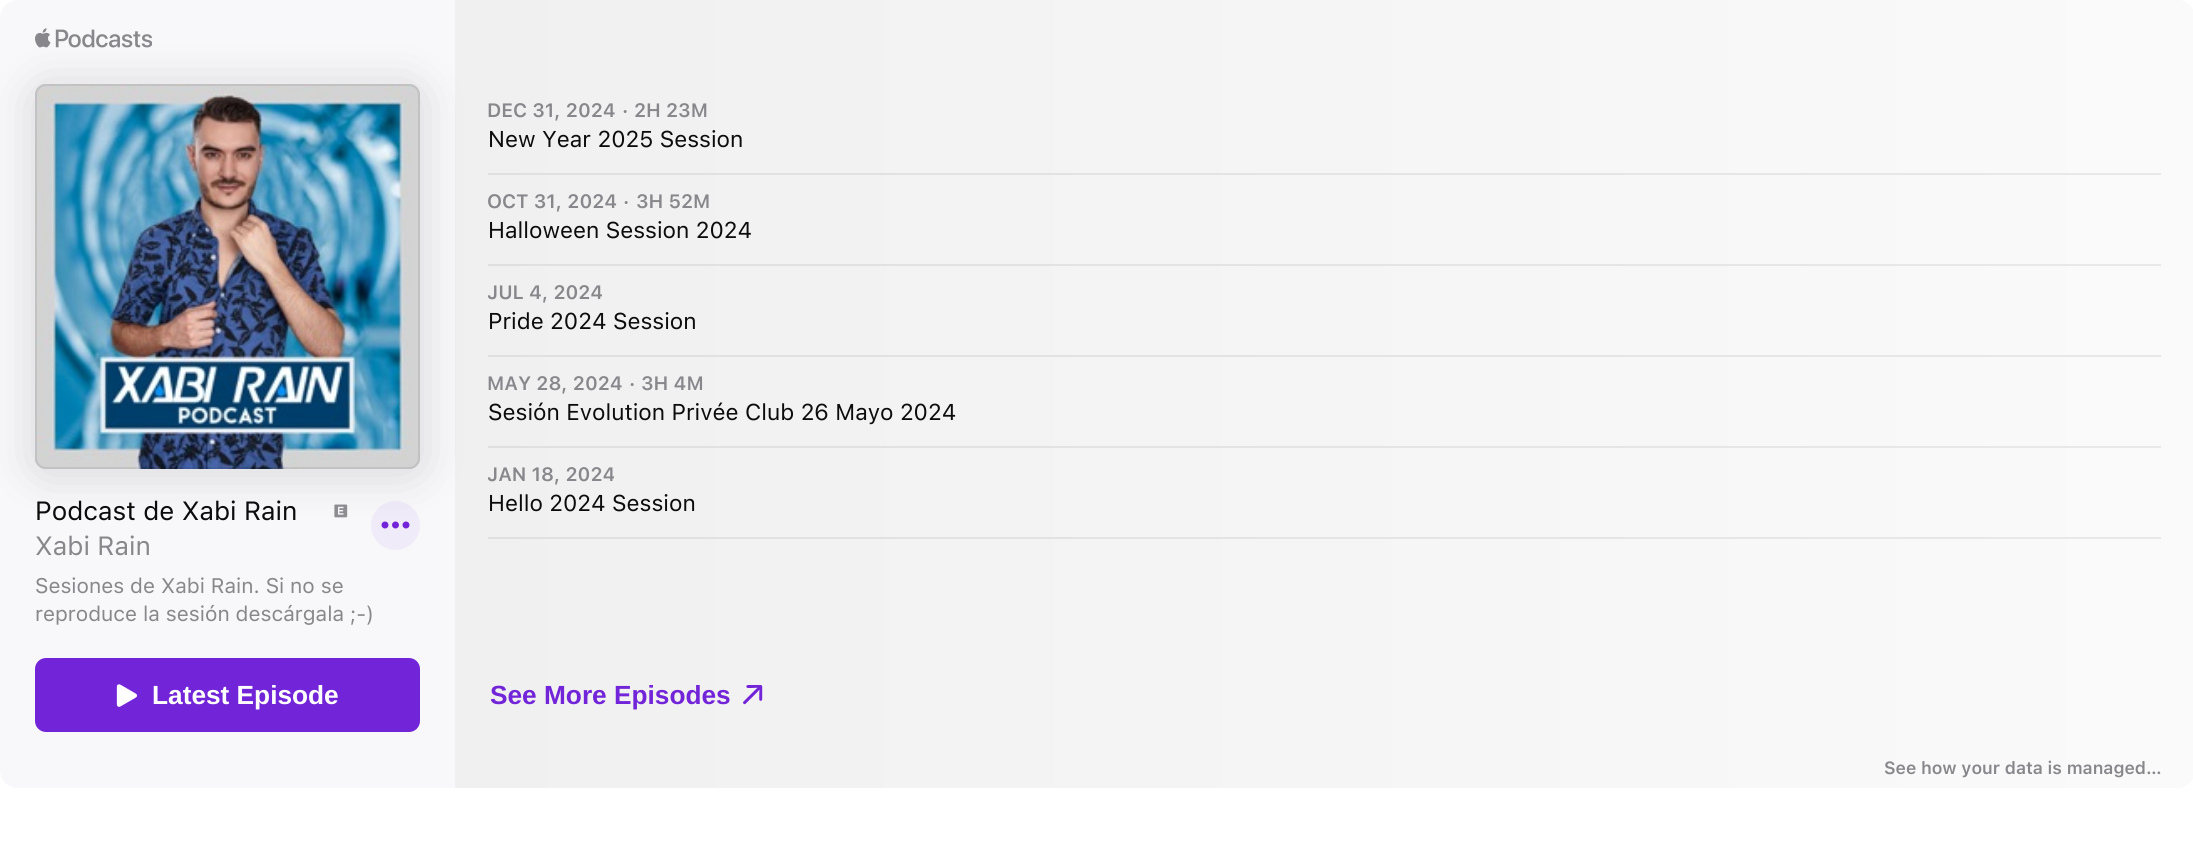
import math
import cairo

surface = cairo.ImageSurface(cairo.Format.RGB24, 2193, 848)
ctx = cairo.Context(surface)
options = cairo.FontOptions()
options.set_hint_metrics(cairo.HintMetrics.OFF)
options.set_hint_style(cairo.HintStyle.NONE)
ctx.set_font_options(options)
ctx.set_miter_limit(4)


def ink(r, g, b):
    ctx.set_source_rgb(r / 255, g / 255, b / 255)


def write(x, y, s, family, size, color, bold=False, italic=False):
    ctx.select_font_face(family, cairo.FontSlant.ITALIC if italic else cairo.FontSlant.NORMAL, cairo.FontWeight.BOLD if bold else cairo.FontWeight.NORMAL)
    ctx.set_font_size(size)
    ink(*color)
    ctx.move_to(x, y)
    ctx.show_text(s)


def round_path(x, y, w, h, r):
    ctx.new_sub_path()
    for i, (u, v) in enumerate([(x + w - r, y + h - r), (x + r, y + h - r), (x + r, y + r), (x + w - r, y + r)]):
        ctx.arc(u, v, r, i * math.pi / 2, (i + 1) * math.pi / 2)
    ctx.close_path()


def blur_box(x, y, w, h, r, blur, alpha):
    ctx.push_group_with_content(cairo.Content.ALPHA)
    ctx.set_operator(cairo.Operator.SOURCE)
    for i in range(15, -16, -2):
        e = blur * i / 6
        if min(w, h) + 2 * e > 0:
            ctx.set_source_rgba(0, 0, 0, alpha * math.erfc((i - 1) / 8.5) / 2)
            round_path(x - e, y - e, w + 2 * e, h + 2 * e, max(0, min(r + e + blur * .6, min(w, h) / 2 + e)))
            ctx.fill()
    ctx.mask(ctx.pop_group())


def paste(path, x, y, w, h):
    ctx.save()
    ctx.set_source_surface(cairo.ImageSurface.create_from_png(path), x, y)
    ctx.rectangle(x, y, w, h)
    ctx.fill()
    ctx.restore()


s1 = dict(family="SF SemiBold", size=19.25, color=(135, 135, 140))
s2 = dict(family="SF", size=22.75, color=(12, 12, 13))
s3 = dict(family="SF", size=26.25, color=(12, 12, 13))
s4 = dict(family="SF", size=26.25, color=(135, 135, 140))
s5 = dict(family="SF", size=21, color=(135, 135, 140))
s6 = dict(family="Liberation Sans", size=26.25, color=(255, 255, 255), bold=True)
s7 = dict(family="Liberation Sans", size=26.25, color=(114, 36, 216), bold=True)
s8 = dict(family="SF SemiBold", size=17.5, color=(135, 135, 140))

ink(255, 255, 255)
ctx.paint()
ink(248, 248, 250)
round_path(0, 0, 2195, 788, 18)
ctx.fill()
gradient = cairo.LinearGradient(455, 394, 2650, 394)
gradient.add_color_stop_rgba(0, 0.941, 0.941, 0.941, 1)
gradient.add_color_stop_rgba(1, 0.992, 0.992, 0.992, 1)
ctx.set_source(gradient)
ctx.new_path()
ctx.move_to(455, 0)
ctx.line_to(2177, 0)
ctx.curve_to(2187, 0, 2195, 8, 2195, 18)
ctx.line_to(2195, 770)
ctx.curve_to(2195, 780, 2187, 788, 2177, 788)
ctx.line_to(455, 788)
ctx.close_path()
ctx.fill()
gradient = cairo.LinearGradient(455, 394, 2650, 394)
gradient.add_color_stop_rgba(0, 0.875, 0.875, 0.875, 1)
gradient.add_color_stop_rgba(1, 0.922, 0.922, 0.922, 1)
ctx.set_source(gradient)
ctx.rectangle(488, 537, 1673, 2)
ctx.fill()
ctx.rectangle(488, 446, 1673, 2)
ctx.fill()
ctx.rectangle(488, 355, 1673, 2)
ctx.fill()
ctx.rectangle(488, 264, 1673, 2)
ctx.fill()
ctx.rectangle(488, 173, 1673, 2)
ctx.fill()
ink(211, 211, 211)
round_path(35, 84, 385, 385, 11)
ctx.fill()
paste("pic2.png", 35, 28, 117, 20)
paste("pic3.png", 334, 504, 14, 14)
ink(240, 235, 248)
ctx.arc(395.5, 525.5, 24.5, 0, 2 * math.pi)
ctx.fill()
paste("pic4.png", 381, 521, 29, 8)
ink(0, 0, 0)
blur_box(35, 88, 385, 385, 11, 24.5, 0.14)
paste("pic1.png", 35, 84, 385, 385)
round_path(36, 85, 383, 383, 10)
ctx.set_source_rgba(0, 0, 0, 0.08)
ctx.stroke()
write(487, 117, "DEC 31, 2024", **s1)
write(622, 117, "·", **s1)
write(634, 117, "2H 23M", **s1)
write(488, 147, "New Year 2025 Session", **s2)
ctx.save()
ctx.rectangle(488, 191, 128, 24)
ctx.clip()
write(487, 208, "OCT 31, 2024", **s1)
ctx.restore()
write(623, 208, "·", **s1)
write(636, 208, "3H 52M", **s1)
write(488, 238, "Halloween Session 2024", **s2)
ctx.save()
ctx.rectangle(488, 282, 114, 24)
ctx.clip()
write(487, 299, "JUL 4, 2024", **s1)
ctx.restore()
write(488, 329, "Pride 2024 Session", **s2)
write(487, 390, "MAY 28, 2024", **s1)
write(629, 390, "·", **s1)
write(641, 390, "3H 4M", **s1)
write(488, 420, "Sesión Evolution Privée Club 26 Mayo 2024", **s2)
ctx.save()
ctx.rectangle(488, 464, 126, 24)
ctx.clip()
write(487, 481, "JAN 18, 2024", **s1)
ctx.restore()
write(488, 511, "Hello 2024 Session", **s2)
write(35, 520, "Podcast de Xabi Rain", **s3)
write(35, 555, "Xabi Rain", **s4)
write(35, 593, "Sesiones de Xabi Rain. Si no se", **s5)
write(35, 621, "reproduce la sesión descárgala ;-)", **s5)
ink(114, 36, 216)
round_path(35, 658, 385, 74, 11)
ctx.fill()
paste("pic5.png", 116, 684, 22, 23)
write(152, 704, "Latest Episode", **s6)
write(490, 704, "See More Episodes", **s7)
paste("pic6.png", 743, 685, 20, 20)
write(1884, 774, "See how your data is managed…", **s8)
surface.write_to_png("screenshot.png")
